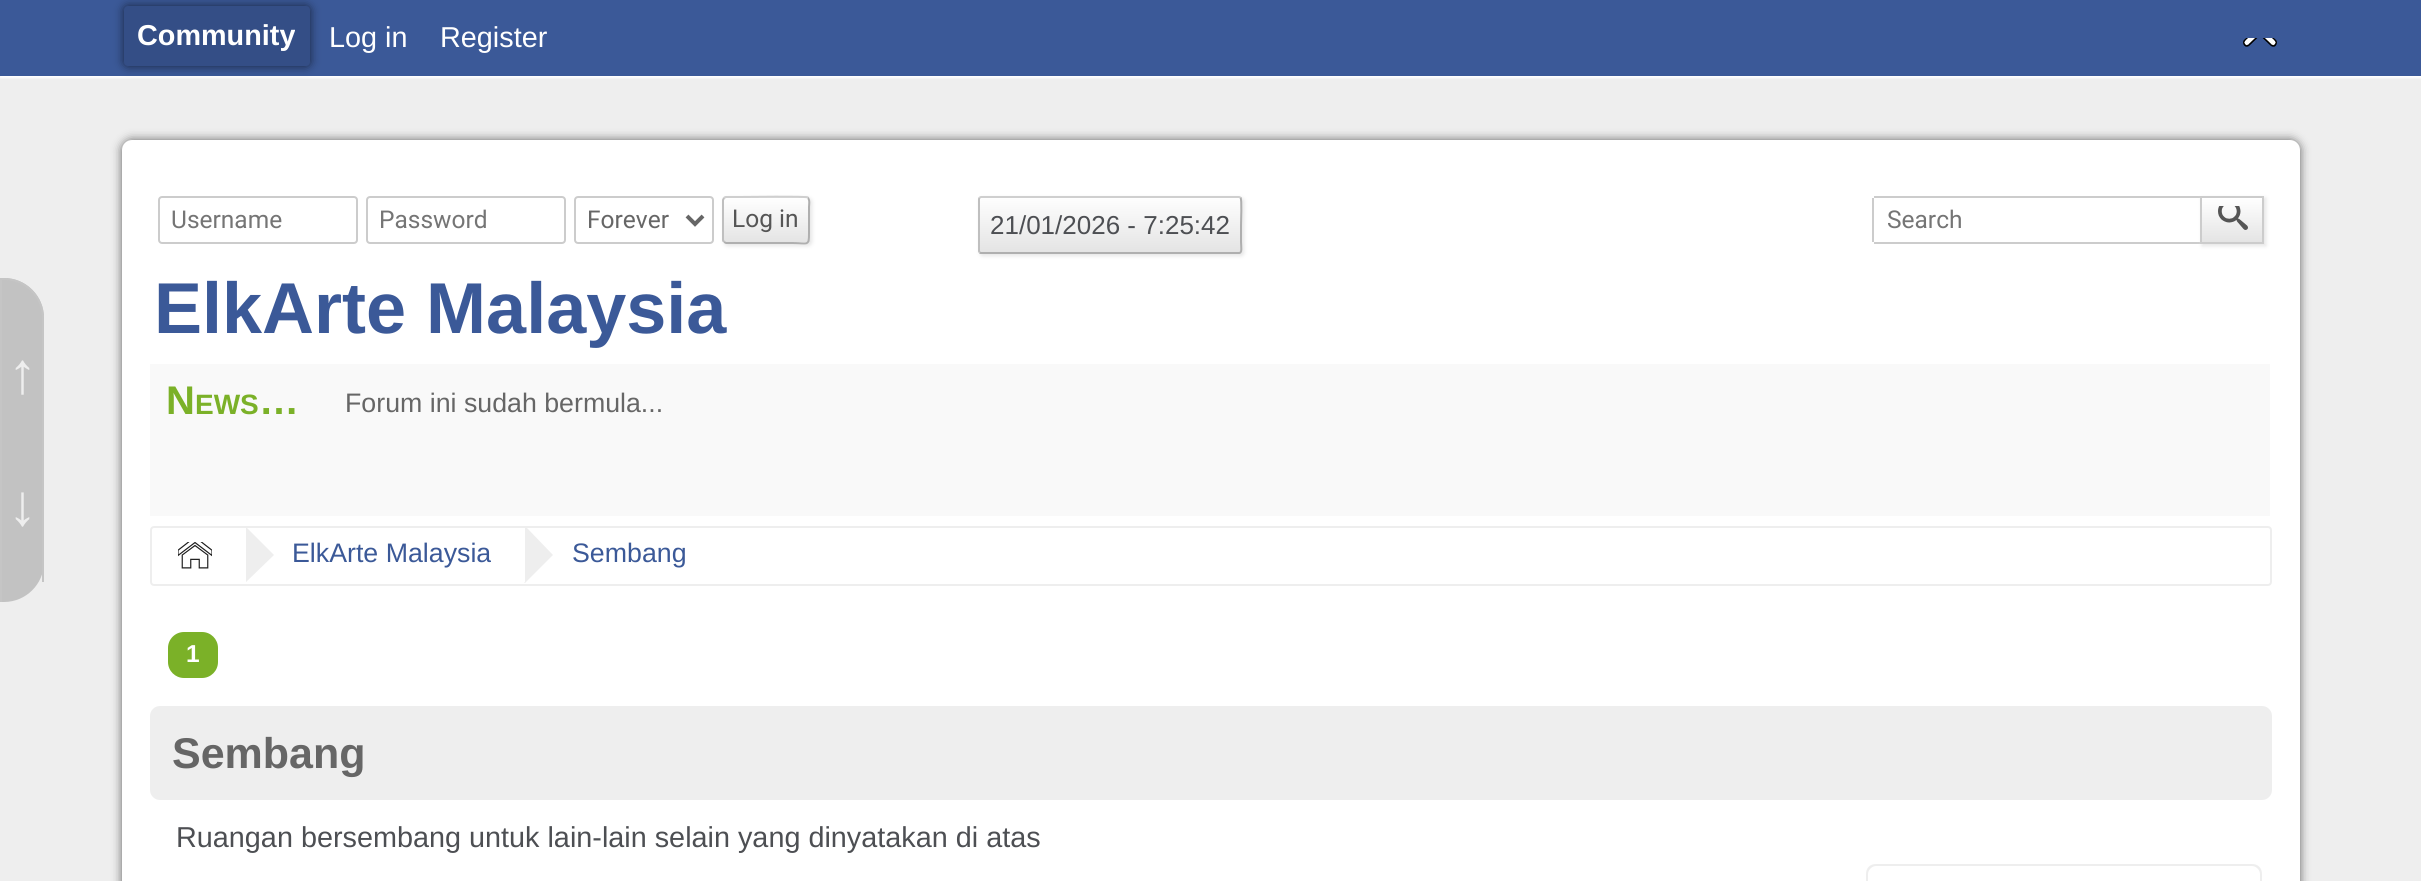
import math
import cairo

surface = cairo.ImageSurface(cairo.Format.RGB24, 2421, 881)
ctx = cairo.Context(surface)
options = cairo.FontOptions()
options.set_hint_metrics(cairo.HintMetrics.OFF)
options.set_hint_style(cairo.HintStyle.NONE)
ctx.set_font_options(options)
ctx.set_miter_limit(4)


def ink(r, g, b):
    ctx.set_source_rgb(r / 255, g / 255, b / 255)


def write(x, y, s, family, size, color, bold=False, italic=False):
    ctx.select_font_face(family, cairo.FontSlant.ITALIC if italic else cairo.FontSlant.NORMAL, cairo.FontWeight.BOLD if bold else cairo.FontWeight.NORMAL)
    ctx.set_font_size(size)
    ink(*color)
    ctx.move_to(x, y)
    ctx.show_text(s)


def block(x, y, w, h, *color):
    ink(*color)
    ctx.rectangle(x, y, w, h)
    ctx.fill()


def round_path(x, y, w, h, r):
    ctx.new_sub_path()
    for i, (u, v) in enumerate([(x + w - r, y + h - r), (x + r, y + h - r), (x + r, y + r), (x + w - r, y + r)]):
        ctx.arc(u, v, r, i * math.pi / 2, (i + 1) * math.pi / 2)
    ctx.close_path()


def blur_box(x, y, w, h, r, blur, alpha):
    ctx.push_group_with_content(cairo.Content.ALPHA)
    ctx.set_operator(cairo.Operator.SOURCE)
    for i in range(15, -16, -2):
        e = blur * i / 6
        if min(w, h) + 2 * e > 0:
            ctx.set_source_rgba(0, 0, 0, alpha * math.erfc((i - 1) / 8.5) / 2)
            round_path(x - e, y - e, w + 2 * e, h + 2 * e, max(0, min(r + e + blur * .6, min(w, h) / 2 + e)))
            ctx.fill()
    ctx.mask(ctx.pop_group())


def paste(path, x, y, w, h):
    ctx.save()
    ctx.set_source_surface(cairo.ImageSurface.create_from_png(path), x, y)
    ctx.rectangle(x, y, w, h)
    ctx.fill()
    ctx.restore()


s1 = dict(family="Liberation Sans", size=28.8, color=(255, 255, 255), bold=True)
s2 = dict(family="Liberation Sans", size=28.8, color=(255, 255, 255))
s3 = dict(family="Liberation Sans", size=58, color=(238, 238, 238), bold=True)
s4 = dict(family="Roboto", size=24.5, color=(117, 117, 117))
s5 = dict(family="Roboto", size=24.5, color=(102, 102, 102))
s6 = dict(family="Roboto", size=24.5, color=(85, 85, 85))
s7 = dict(family="Liberation Sans", size=26, color=(77, 79, 83))
s8 = dict(family="Liberation Sans", size=72, color=(59, 89, 152), bold=True)
s9 = dict(family="Liberation Sans", size=40, color=(123, 177, 40), bold=True)
s10 = dict(family="Liberation Sans", size=28, color=(123, 177, 40), bold=True)
s11 = dict(family="Liberation Sans", size=26.75, color=(102, 102, 102))
s12 = dict(family="Liberation Sans", size=26.75, color=(59, 89, 152))
s13 = dict(family="Liberation Sans", size=24.5, color=(255, 255, 255), bold=True)
s14 = dict(family="Liberation Sans", size=43, color=(102, 102, 102), bold=True)
s15 = dict(family="Liberation Sans", size=28.8, color=(77, 79, 83))

ink(238, 238, 238)
ctx.paint()
ink(255, 255, 255)
blur_box(0, 2, 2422, 76, 0, 1, 1)
block(0, 0, 2421, 76, 59, 89, 152)
ink(0, 0, 0)
blur_box(124, 6, 186, 60, 4, 5, 0.6)
ink(52, 78, 134)
round_path(124, 6, 186, 60, 4)
ctx.fill()
write(137, 45, "Community", **s1)
write(329, 47, "Log in", **s2)
write(440, 47, "Register", **s2)
paste("pic1.png", 2243, 38, 34, 9)
ink(194, 194, 194)
ctx.new_path()
ctx.move_to(0, 278)
ctx.line_to(4, 278)
ctx.curve_to(26, 278, 44, 296, 44, 318)
ctx.line_to(44, 442)
ctx.line_to(0, 442)
ctx.close_path()
ctx.fill()
ink(197, 197, 197)
ctx.set_fill_rule(cairo.FillRule.EVEN_ODD)
ctx.new_path()
ctx.move_to(0, 278)
ctx.line_to(4, 278)
ctx.curve_to(26, 278, 44, 296, 44, 318)
ctx.line_to(44, 442)
ctx.line_to(0, 442)
ctx.close_path()
ctx.move_to(2, 280)
ctx.line_to(4, 280)
ctx.curve_to(25, 280, 42, 297, 42, 318)
ctx.line_to(42, 442)
ctx.line_to(2, 442)
ctx.close_path()
ctx.fill()
write(8, 393, "↑", **s3)
ink(0, 0, 0)
blur_box(122, 140, 2178, 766, 10, 5, 0.6)
ink(255, 255, 255)
round_path(122, 140, 2178, 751, 10)
ctx.fill()
round_path(159, 197, 198, 46, 3)
ink(204, 204, 204)
ctx.stroke()
write(171, 228, "Username", **s4)
round_path(367, 197, 198, 46, 3)
ink(204, 204, 204)
ctx.stroke()
write(379, 228, "Password", **s4)
round_path(575, 197, 138, 46, 3)
ink(204, 204, 204)
ctx.stroke()
ctx.new_path()
ctx.move_to(687, 216)
ctx.line_to(695, 224)
ctx.line_to(703, 216)
ink(102, 102, 102)
ctx.set_line_width(4)
ctx.stroke()
write(587, 228, "Forever", **s5)
ink(229, 229, 229)
blur_box(724, 198, 88, 48, 4, 2, 1)
ctx.save()
ctx.set_fill_rule(cairo.FillRule.WINDING)
round_path(722, 196, 88, 48, 4)
ctx.clip()
gradient = cairo.LinearGradient(766, 154, 766, 198)
gradient.add_color_stop_rgba(0, 1, 1, 1, 1)
gradient.add_color_stop_rgba(1, 0.894, 0.894, 0.894, 1)
ctx.set_source(gradient)
ctx.rectangle(722, 196, 88, 2)
ctx.fill()
gradient = cairo.LinearGradient(766, 198, 766, 242)
gradient.add_color_stop_rgba(0, 1, 1, 1, 1)
gradient.add_color_stop_rgba(1, 0.894, 0.894, 0.894, 1)
ctx.set_source(gradient)
ctx.rectangle(722, 198, 88, 44)
ctx.fill()
gradient = cairo.LinearGradient(766, 242, 766, 286)
gradient.add_color_stop_rgba(0, 1, 1, 1, 1)
gradient.add_color_stop_rgba(1, 0.894, 0.894, 0.894, 1)
ctx.set_source(gradient)
ctx.rectangle(722, 242, 88, 2)
ctx.fill()
ctx.restore()
ctx.new_path()
ctx.move_to(724, 198)
ctx.line_to(726, 197)
ctx.line_to(739.5, 197)
ctx.curve_to(747, 197, 806, 196, 808, 197.5)
ctx.line_to(808, 198)
ink(207, 207, 207)
ctx.set_line_width(2)
ctx.stroke()
ctx.new_path()
ctx.move_to(808, 198)
ctx.curve_to(810, 200, 809, 205.5, 809, 206.5)
ctx.line_to(809, 233.5)
ctx.curve_to(809, 246.5, 808, 243, 792.5, 243)
ctx.line_to(726, 243)
ctx.line_to(724, 242)
ink(175, 175, 175)
ctx.stroke()
ctx.new_path()
ctx.move_to(724, 242)
ctx.line_to(723, 240)
ctx.line_to(723, 200)
ctx.line_to(724, 198)
ink(191, 191, 191)
ctx.stroke()
write(732, 227, "Log in", **s6)
ink(229, 229, 229)
blur_box(980, 198, 264, 58, 3, 2, 1)
ctx.save()
ctx.set_fill_rule(cairo.FillRule.WINDING)
round_path(978, 196, 264, 58, 3)
ctx.clip()
gradient = cairo.LinearGradient(1110, 198, 1110, 252)
gradient.add_color_stop_rgba(0, 0.996, 0.996, 0.996, 1)
gradient.add_color_stop_rgba(1, 0.894, 0.894, 0.894, 1)
ctx.set_source(gradient)
ctx.rectangle(978, 198, 264, 54)
ctx.fill()
ctx.restore()
ctx.new_path()
ctx.move_to(979.5, 197.5)
ctx.line_to(981, 197)
ctx.line_to(1239, 197)
ctx.line_to(1240.5, 197.5)
ink(207, 207, 207)
ctx.stroke()
ctx.new_path()
ctx.move_to(1240.5, 197.5)
ctx.curve_to(1242, 199.5, 1241, 221.5, 1241, 225)
ctx.line_to(1241, 242)
ctx.curve_to(1241, 246.5, 1242.5, 253, 1239, 253)
ctx.line_to(980.5, 253)
ctx.line_to(979.5, 252.5)
ink(175, 175, 175)
ctx.stroke()
ctx.new_path()
ctx.move_to(979.5, 252.5)
ctx.line_to(979, 251)
ctx.line_to(979, 199)
ctx.line_to(979.5, 197.5)
ink(191, 191, 191)
ctx.stroke()
write(990, 234, "21/01/2026 - 7:25:42", **s7)
block(1874, 196, 326, 2, 204, 204, 204)
block(1874, 242, 326, 2, 204, 204, 204)
block(1872, 198, 2, 44, 204, 204, 204)
write(1887, 228, "Search", **s4)
ink(229, 229, 229)
blur_box(2202, 198, 64, 48, 0, 2, 1)
gradient = cairo.LinearGradient(2232, 198, 2232, 242)
gradient.add_color_stop_rgba(0, 1, 1, 1, 1)
gradient.add_color_stop_rgba(1, 0.894, 0.894, 0.894, 1)
ctx.set_source(gradient)
ctx.rectangle(2202, 198, 60, 44)
ctx.fill()
ctx.rectangle(2201, 197, 62, 46)
ink(204, 204, 204)
ctx.stroke()
paste("pic2.png", 2218, 206, 30, 24)
write(154, 333, "ElkArte Malaysia", **s8)
block(150, 364, 2120, 152, 249, 249, 249)
write(166, 414, "N", **s9)
write(195, 414, "EWS", **s10)
write(259, 414, "…", **s9)
write(345, 412, "Forum ini sudah bermula...", **s11)
round_path(151, 527, 2120, 58, 3)
ink(238, 238, 238)
ctx.stroke()
paste("pic3.png", 178, 542, 34, 27)
gradient = cairo.LinearGradient(217, 555, 274, 555)
gradient.add_color_stop_rgba(0, 1, 1, 1, 1)
gradient.add_color_stop_rgba(0.5, 1, 1, 1, 1)
gradient.add_color_stop_rgba(0.5, 0.933, 0.933, 0.933, 1)
gradient.add_color_stop_rgba(1, 0.933, 0.933, 0.933, 1)
ctx.set_source(gradient)
ctx.set_fill_rule(cairo.FillRule.WINDING)
ctx.new_path()
ctx.move_to(247, 528)
ctx.line_to(274, 555)
ctx.line_to(245, 583)
ctx.line_to(217, 555)
ctx.line_to(243, 528)
ctx.close_path()
ctx.fill()
write(292, 562, "ElkArte Malaysia", **s12)
gradient = cairo.LinearGradient(496, 555, 553, 555)
gradient.add_color_stop_rgba(0, 1, 1, 1, 1)
gradient.add_color_stop_rgba(0.5, 1, 1, 1, 1)
gradient.add_color_stop_rgba(0.5, 0.933, 0.933, 0.933, 1)
gradient.add_color_stop_rgba(1, 0.933, 0.933, 0.933, 1)
ctx.set_source(gradient)
ctx.new_path()
ctx.move_to(527, 528)
ctx.line_to(553, 555)
ctx.line_to(525, 583)
ctx.line_to(496, 555)
ctx.line_to(523, 528)
ctx.close_path()
ctx.fill()
write(572, 562, "Sembang", **s12)
ink(123, 177, 40)
round_path(168, 632, 50, 46, 16)
ctx.fill()
write(186, 662, "1", **s13)
ink(238, 238, 238)
round_path(150, 706, 2122, 94, 10)
ctx.fill()
write(172, 768, "Sembang", **s14)
write(176, 847, "Ruangan bersembang untuk lain-lain selain yang dinyatakan di atas", **s15)
ink(238, 238, 238)
ctx.set_fill_rule(cairo.FillRule.EVEN_ODD)
ctx.new_path()
ctx.move_to(1876, 864)
ctx.line_to(2252, 864)
ctx.curve_to(2258, 864, 2262, 868, 2262, 874)
ctx.line_to(2262, 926)
ctx.line_to(1866, 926)
ctx.line_to(1866, 874)
ctx.curve_to(1866, 868, 1870, 864, 1876, 864)
ctx.close_path()
ctx.move_to(1876, 866)
ctx.line_to(2252, 866)
ctx.curve_to(2256, 866, 2260, 870, 2260, 874)
ctx.line_to(2260, 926)
ctx.line_to(1868, 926)
ctx.line_to(1868, 874)
ctx.curve_to(1868, 870, 1872, 866, 1876, 866)
ctx.close_path()
ctx.fill()
ink(194, 194, 194)
ctx.new_path()
ctx.move_to(0, 442)
ctx.line_to(44, 442)
ctx.line_to(44, 562)
ctx.curve_to(44, 584, 26, 602, 4, 602)
ctx.line_to(0, 602)
ctx.close_path()
ctx.fill()
block(42, 442, 2, 140, 197, 197, 197)
block(0, 442, 2, 160, 197, 197, 197)
write(8, 525, "↓", **s3)
surface.write_to_png("screenshot.png")
